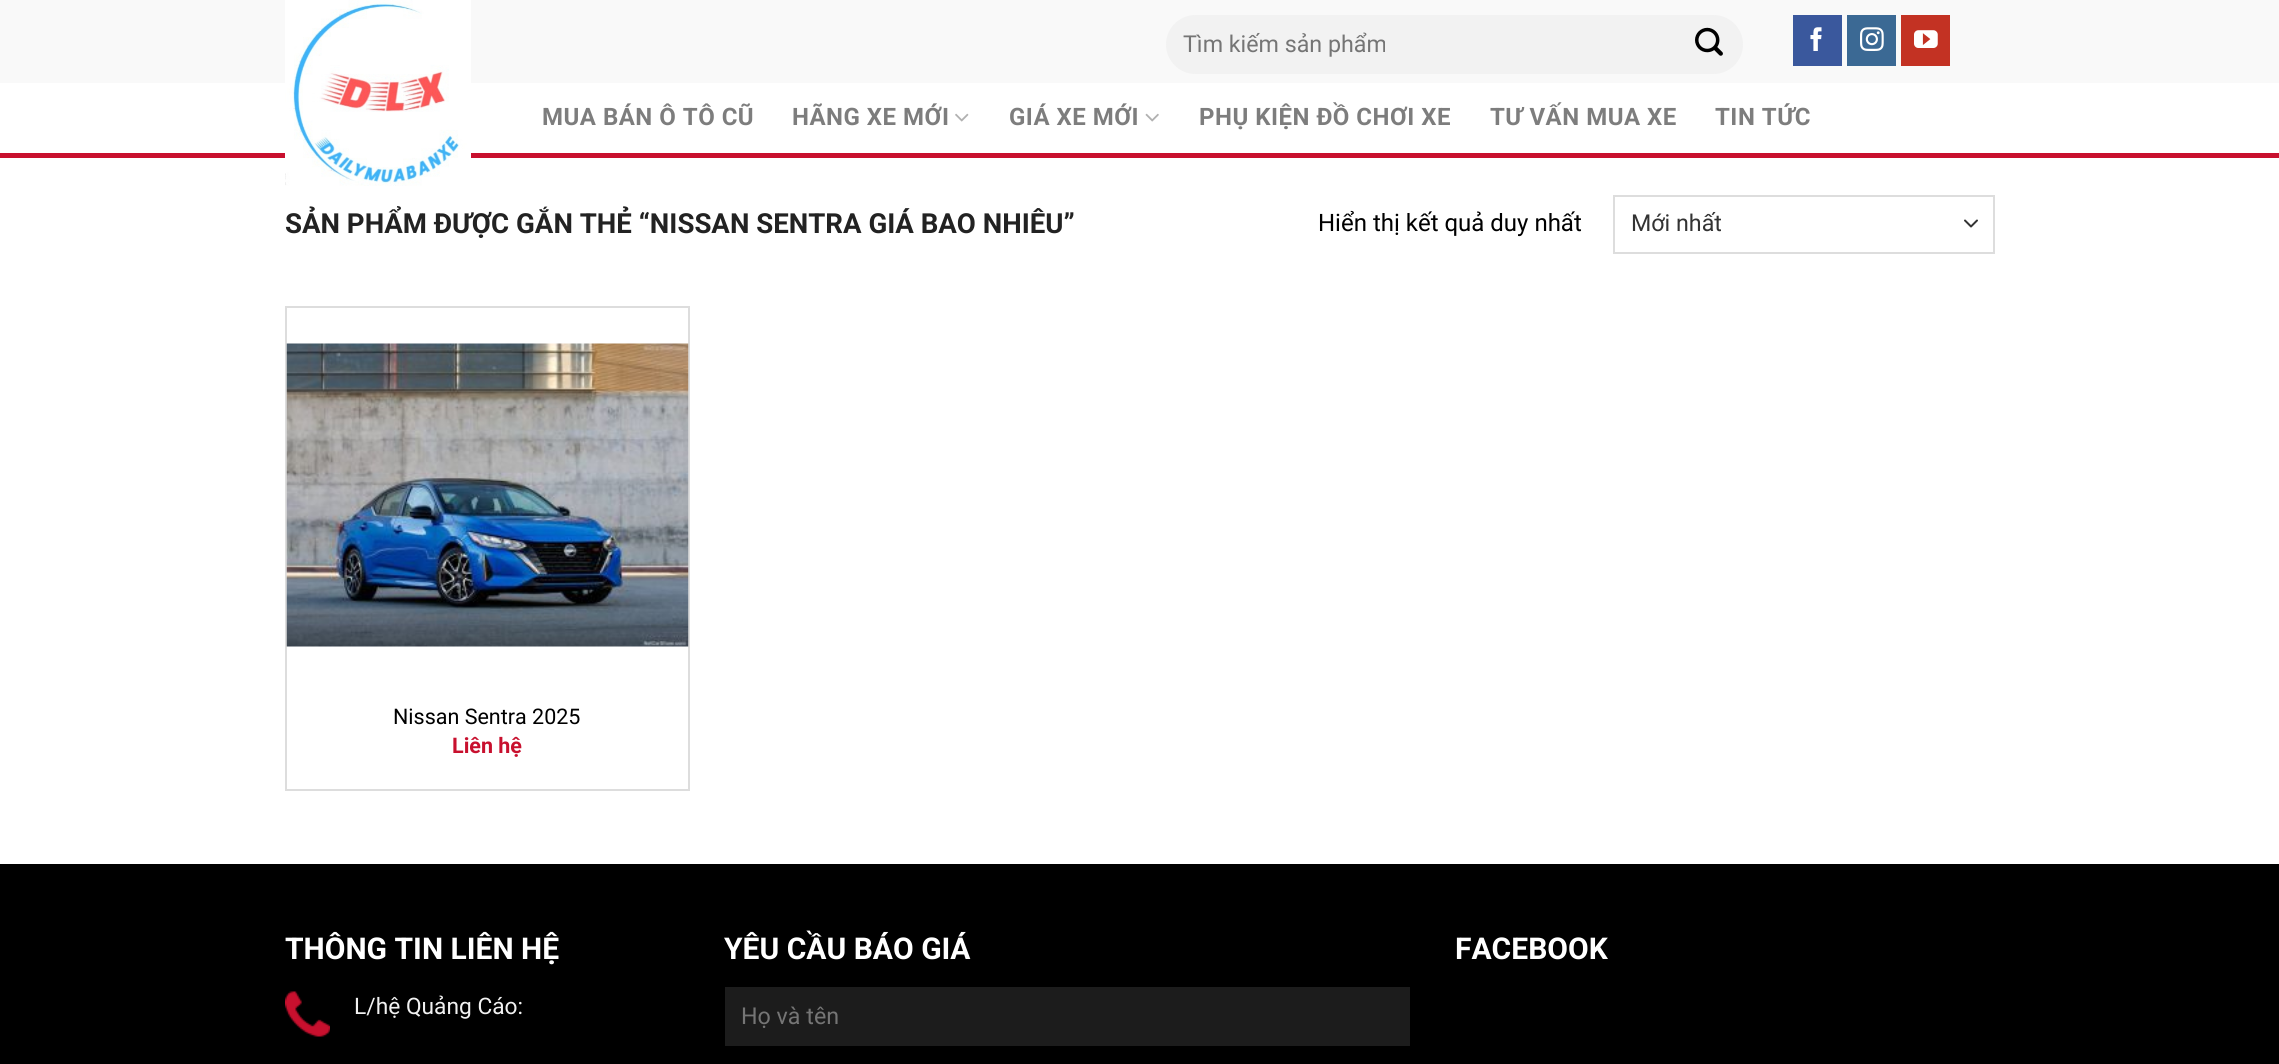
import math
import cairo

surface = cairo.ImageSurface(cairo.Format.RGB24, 2279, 1064)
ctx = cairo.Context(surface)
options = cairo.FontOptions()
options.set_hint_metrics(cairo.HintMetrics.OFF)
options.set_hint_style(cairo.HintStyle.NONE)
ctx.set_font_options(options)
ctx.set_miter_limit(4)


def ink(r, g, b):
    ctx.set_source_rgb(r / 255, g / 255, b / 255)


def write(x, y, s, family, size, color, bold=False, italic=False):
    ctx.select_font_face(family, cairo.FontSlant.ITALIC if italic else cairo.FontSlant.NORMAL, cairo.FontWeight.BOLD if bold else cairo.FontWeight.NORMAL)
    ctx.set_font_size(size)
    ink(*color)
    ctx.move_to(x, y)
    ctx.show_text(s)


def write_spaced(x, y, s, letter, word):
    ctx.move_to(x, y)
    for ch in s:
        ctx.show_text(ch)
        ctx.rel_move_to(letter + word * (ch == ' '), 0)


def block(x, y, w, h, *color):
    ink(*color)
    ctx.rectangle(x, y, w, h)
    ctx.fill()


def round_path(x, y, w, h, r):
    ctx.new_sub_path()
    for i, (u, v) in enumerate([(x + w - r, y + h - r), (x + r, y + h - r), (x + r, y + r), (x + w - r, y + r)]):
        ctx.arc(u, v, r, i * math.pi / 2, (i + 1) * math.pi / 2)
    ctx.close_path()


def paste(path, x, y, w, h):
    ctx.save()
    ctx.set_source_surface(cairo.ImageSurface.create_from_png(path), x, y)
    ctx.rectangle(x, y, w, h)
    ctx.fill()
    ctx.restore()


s1 = dict(family="Roboto", size=23.25, color=(117, 117, 117))
s2 = dict(family="Roboto", size=27.6, color=(34, 34, 34), bold=True)
s3 = dict(family="Roboto", size=24, color=(0, 0, 0))
s4 = dict(family="Roboto", size=23.25, color=(51, 51, 51))
s5 = dict(family="Roboto", size=21.5, color=(0, 0, 0))
s6 = dict(family="Roboto", size=21.5, color=(200, 16, 46), bold=True)
s7 = dict(family="Roboto", size=30, color=(255, 255, 255), bold=True)
s8 = dict(family="Roboto", size=22.75, color=(241, 241, 241))

ink(255, 255, 255)
ctx.paint()
block(0, 0, 2279, 83, 249, 249, 249)
block(0, 153, 2279, 5, 200, 16, 46)
paste("pic1.png", 285, 0, 186, 186)
ink(242, 242, 242)
round_path(1166, 15, 577, 59, 29.5)
ctx.fill()
write(1183, 52, "Tìm kiếm sản phẩm", **s1)
paste("pic2.png", 1695, 27, 28, 29)
block(1793, 15, 49, 51, 58, 88, 157)
paste("pic3.png", 1810, 27, 12, 24)
block(1847, 15, 49, 51, 59, 105, 148)
paste("pic4.png", 1860, 27, 24, 24)
block(1901, 15, 49, 51, 195, 50, 35)
paste("pic5.png", 1914, 30, 24, 18)
ctx.select_font_face("Roboto", cairo.FontSlant.NORMAL, cairo.FontWeight.BOLD)
ctx.set_font_size(24)
ink(125, 125, 125)
write_spaced(542, 125, "MUA BÁN Ô TÔ CŨ", 0.5, 0)
write_spaced(792, 125, "HÃNG XE MỚI", 0.5, 0)
paste("pic6.png", 955, 113, 14, 9)
write_spaced(1009, 125, "GIÁ XE MỚI", 0.5, 0)
paste("pic7.png", 1145, 113, 14, 9)
write_spaced(1199, 125, "PHỤ KIỆN ĐỒ CHƠI XE", 0.5, 0)
write_spaced(1490, 125, "TƯ VẤN MUA XE", 0.5, 0)
write_spaced(1715, 125, "TIN TỨC", 0.5, 0)
write(285, 233, "SẢN PHẨM ĐƯỢC GẮN THẺ “NISSAN SENTRA GIÁ BAO NHIÊU”", **s2)
write(1318, 231, "Hiển thị kết quả duy nhất", **s3)
ctx.new_path()
ctx.move_to(1965, 220.5)
ctx.line_to(1971, 226.5)
ctx.line_to(1977, 220.5)
ink(51, 51, 51)
ctx.set_line_cap(cairo.LineCap.ROUND)
ctx.set_line_join(cairo.LineJoin.ROUND)
ctx.stroke()
ctx.rectangle(1614, 196, 380, 57)
ink(221, 221, 221)
ctx.set_line_cap(cairo.LineCap.BUTT)
ctx.set_line_join(cairo.LineJoin.MITER)
ctx.stroke()
write(1631, 231, "Mới nhất", **s4)
ctx.rectangle(286, 307, 403, 483)
ink(221, 221, 221)
ctx.stroke()
paste("pic8.png", 286, 343, 403, 304)
write(393, 724, "Nissan Sentra 2025", **s5)
write(452, 753, "Liên hệ", **s6)
block(0, 864, 2279, 200, 0, 0, 0)
write(285, 959, "THÔNG TIN LIÊN HỆ", **s7)
paste("pic9.png", 285, 991, 45, 46)
write(354, 1014, "L/hệ Quảng Cáo:", **s8)
write(724, 959, "YÊU CẦU BÁO GIÁ", **s7)
block(725, 987, 685, 59, 28, 28, 28)
write(741, 1024, "Họ và tên", **s1)
write(1455, 959, "FACEBOOK", **s7)
surface.write_to_png("screenshot.png")
